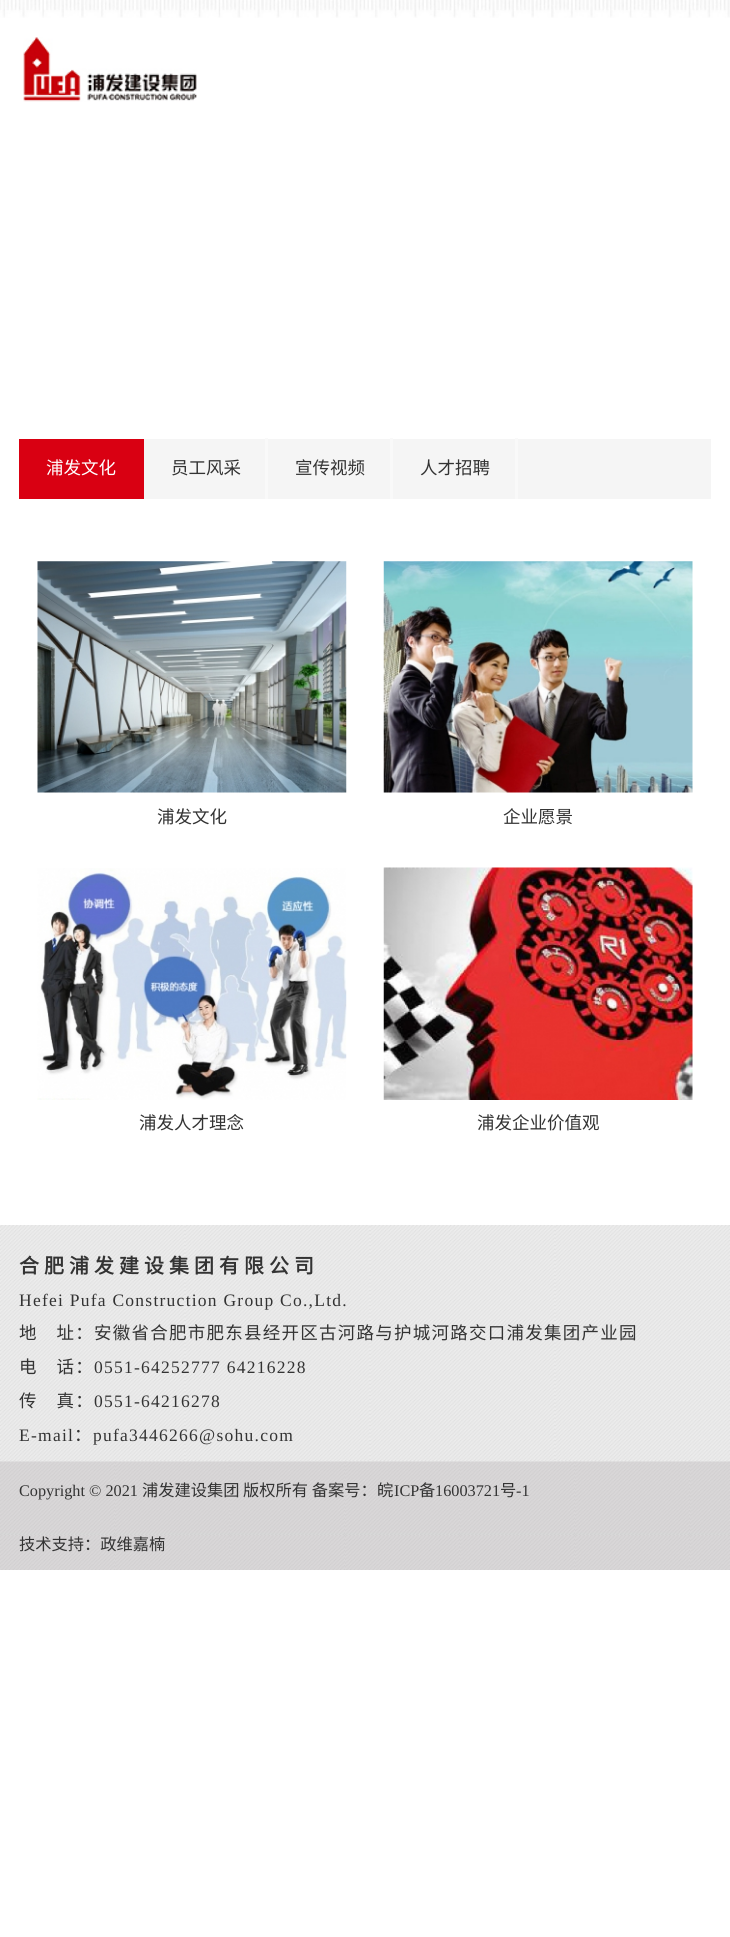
import math
import cairo

surface = cairo.ImageSurface(cairo.Format.RGB24, 730, 1937)
ctx = cairo.Context(surface)
options = cairo.FontOptions()
options.set_hint_metrics(cairo.HintMetrics.OFF)
options.set_hint_style(cairo.HintStyle.NONE)
ctx.set_font_options(options)
ctx.set_miter_limit(4)


def ink(r, g, b):
    ctx.set_source_rgb(r / 255, g / 255, b / 255)


def write(x, y, s, family, size, color, bold=False, italic=False):
    ctx.select_font_face(family, cairo.FontSlant.ITALIC if italic else cairo.FontSlant.NORMAL, cairo.FontWeight.BOLD if bold else cairo.FontWeight.NORMAL)
    ctx.set_font_size(size)
    ink(*color)
    ctx.move_to(x, y)
    ctx.show_text(s)


def write_spaced(x, y, s, letter, word):
    ctx.move_to(x, y)
    for ch in s:
        ctx.show_text(ch)
        ctx.rel_move_to(letter + word * (ch == ' '), 0)


def block(x, y, w, h, *color):
    ink(*color)
    ctx.rectangle(x, y, w, h)
    ctx.fill()


def paste(path, x, y, w, h):
    ctx.save()
    ctx.set_source_surface(cairo.ImageSurface.create_from_png(path), x, y)
    ctx.rectangle(x, y, w, h)
    ctx.fill()
    ctx.restore()


s1 = dict(family="Noto Sans CJK SC", size=17.5, color=(255, 255, 255))
s2 = dict(family="Noto Sans CJK SC", size=17.5, color=(51, 51, 51))
s3 = dict(family="Liberation Serif", size=16.25, color=(51, 51, 51))
s4 = dict(family="Noto Sans CJK SC", size=16.25, color=(51, 51, 51))

ink(255, 255, 255)
ctx.paint()
paste("pic1.png", 0, 0, 730, 18)
paste("pic2.png", 23, 37, 174, 65)
block(144, 439, 567, 60, 245, 245, 245)
block(19, 439, 125, 60, 217, 0, 18)
write(46, 474, "浦发文化", **s1)
block(265, 438, 3, 61, 249, 249, 249)
write(171, 474, "员工风采", **s2)
block(390, 438, 3, 61, 249, 249, 249)
write(295, 474, "宣传视频", **s2)
block(515, 438, 3, 61, 249, 249, 249)
write(420, 474, "人才招聘", **s2)
paste("pic3.png", 37, 561, 310, 232)
write(157, 823, "浦发文化", **s2)
paste("pic4.png", 383, 561, 310, 232)
write(503, 823, "企业愿景", **s2)
paste("pic5.png", 37, 868, 310, 232)
write(139, 1129, "浦发人才理念", **s2)
paste("pic6.png", 383, 867, 310, 233)
write(477, 1129, "浦发企业价值观", **s2)
paste("pic7.png", 0, 1225, 730, 237)
ctx.select_font_face("Noto Sans CJK SC", cairo.FontSlant.NORMAL, cairo.FontWeight.BOLD)
ctx.set_font_size(20)
write_spaced(19, 1273, "合肥浦发建设集团有限公司", 5, 0)
ctx.select_font_face("Liberation Serif")
ctx.set_font_size(17.5)
write_spaced(19, 1306, "Hefei Pufa Construction Group Co.,Ltd.", 1.25, 0)
ctx.select_font_face("Noto Sans CJK SC")
write_spaced(19, 1339, "地　址：安徽省合肥市肥东县经开区古河路与护城河路交口浦发集团产业园", 1.25, 0)
write_spaced(19, 1373, "电　话：", 1.25, 0)
ctx.select_font_face("Liberation Serif")
write_spaced(94, 1373, "0551-64252777 64216228", 1.25, 0)
ctx.select_font_face("Noto Sans CJK SC")
write_spaced(19, 1407, "传　真：", 1.25, 0)
ctx.select_font_face("Liberation Serif")
write_spaced(94, 1407, "0551-64216278", 1.25, 0)
write_spaced(19, 1441, "E-mail", 1.25, 0)
ctx.select_font_face("Noto Sans CJK SC")
write_spaced(74, 1441, "：", 1.25, 0)
ctx.select_font_face("Liberation Serif")
write_spaced(93, 1441, "pufa3446266@sohu.com", 1.25, 0)
paste("pic8.png", 0, 1461, 730, 109)
write(19, 1496, "Copyright © 2021", **s3)
write(142, 1496, "浦发建设集团", **s4)
write(243, 1496, "版权所有 备案号：", **s4)
write(377, 1496, "皖", **s4)
write(394, 1496, "ICP", **s3)
write(419, 1496, "备", **s4)
write(435, 1496, "16003721", **s3)
write(500, 1496, "号", **s4)
write(516, 1496, "-1", **s3)
write(19, 1550, "技术支持：政维嘉楠", **s4)
surface.write_to_png("screenshot.png")
